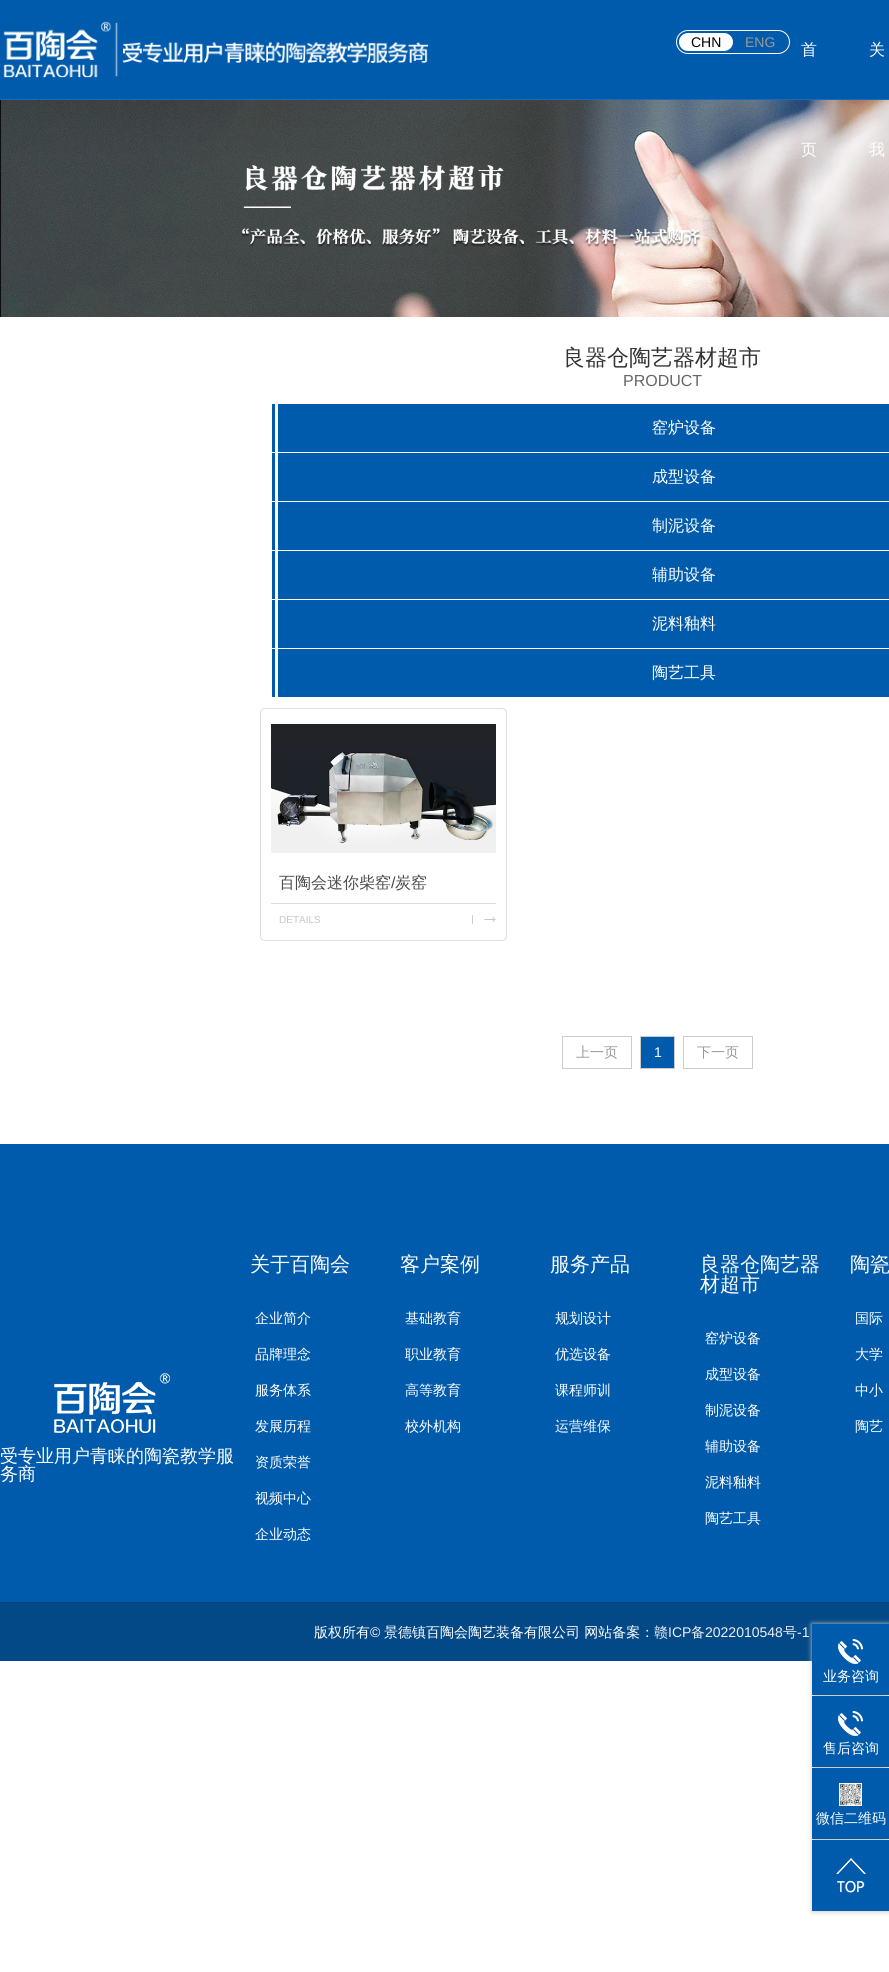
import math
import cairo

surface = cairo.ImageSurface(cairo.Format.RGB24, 889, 1972)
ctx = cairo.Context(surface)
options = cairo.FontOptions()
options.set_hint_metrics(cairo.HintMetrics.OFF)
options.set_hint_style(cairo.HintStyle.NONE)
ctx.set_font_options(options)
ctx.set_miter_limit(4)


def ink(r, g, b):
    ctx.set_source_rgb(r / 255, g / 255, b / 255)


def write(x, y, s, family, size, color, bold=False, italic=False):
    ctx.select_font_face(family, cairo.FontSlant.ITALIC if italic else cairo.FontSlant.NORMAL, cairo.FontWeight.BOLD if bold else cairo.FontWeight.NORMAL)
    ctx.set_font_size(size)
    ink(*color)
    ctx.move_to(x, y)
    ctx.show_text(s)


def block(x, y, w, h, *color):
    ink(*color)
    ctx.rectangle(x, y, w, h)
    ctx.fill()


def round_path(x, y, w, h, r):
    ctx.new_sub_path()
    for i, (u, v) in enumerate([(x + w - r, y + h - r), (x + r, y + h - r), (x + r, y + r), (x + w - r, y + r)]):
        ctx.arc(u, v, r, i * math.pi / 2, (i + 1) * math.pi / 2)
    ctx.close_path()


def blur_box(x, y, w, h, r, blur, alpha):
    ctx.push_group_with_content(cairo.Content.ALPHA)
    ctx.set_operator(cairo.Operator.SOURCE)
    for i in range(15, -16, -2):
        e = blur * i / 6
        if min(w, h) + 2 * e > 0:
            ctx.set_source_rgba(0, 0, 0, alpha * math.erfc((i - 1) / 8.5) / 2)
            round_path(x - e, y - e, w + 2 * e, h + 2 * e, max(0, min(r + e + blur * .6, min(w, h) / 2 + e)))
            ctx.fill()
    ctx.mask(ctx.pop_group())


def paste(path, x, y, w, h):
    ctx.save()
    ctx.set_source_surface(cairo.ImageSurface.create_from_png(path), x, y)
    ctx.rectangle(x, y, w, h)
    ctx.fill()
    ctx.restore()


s1 = dict(family="Liberation Sans", size=14, color=(0, 0, 0))
s2 = dict(family="Liberation Sans", size=14, color=(153, 153, 153))
s3 = dict(family="WenQuanYi Zen Hei Medium", size=16, color=(255, 255, 255))
s4 = dict(family="WenQuanYi Zen Hei Medium", size=22, color=(51, 51, 51))
s5 = dict(family="Liberation Sans", size=16, color=(102, 102, 102))
s6 = dict(family="WenQuanYi Zen Hei Medium", size=16, color=(76, 76, 76))
s7 = dict(family="Liberation Sans", size=16, color=(76, 76, 76))
s8 = dict(family="Liberation Sans", size=10, color=(198, 198, 198))
s9 = dict(family="WenQuanYi Zen Hei Medium", size=14, color=(153, 153, 153))
s10 = dict(family="Liberation Sans", size=14, color=(255, 255, 255))
s11 = dict(family="WenQuanYi Zen Hei Medium", size=18, color=(255, 255, 255))
s12 = dict(family="WenQuanYi Zen Hei Medium", size=20, color=(255, 255, 255))
s13 = dict(family="WenQuanYi Zen Hei Medium", size=14, color=(255, 255, 255))
s14 = dict(family="WenQuanYi Zen Hei Medium", size=14, color=(238, 238, 238))
s15 = dict(family="Liberation Sans", size=14, color=(238, 238, 238))

ink(255, 255, 255)
ctx.paint()
block(0, 0, 889, 99, 0, 91, 172)
block(0, 99, 889, 1, 26, 107, 180)
paste("pic1.png", 3, 21, 426, 57)
round_path(676.5, 30.5, 113, 23, 11.5)
ink(255, 255, 255)
ctx.set_line_width(1)
ctx.stroke()
round_path(679, 33, 54, 18, 9)
ctx.fill()
write(691, 47, "CHN", **s1)
write(745, 47, "ENG", **s2)
write(801, 55, "首", **s3)
paste("pic2.png", 0, 100, 889, 217)
write(801, 155, "页", **s3)
write(869, 55, "关", **s3)
write(869, 155, "我", **s3)
write(563, 365, "良器仓陶艺器材超市", **s4)
write(623, 386, "PRODUCT", **s5)
block(272, 404, 617, 48, 0, 91, 172)
block(275, 404, 3, 48, 255, 255, 255)
write(652, 433, "窑炉设备", **s3)
block(272, 453, 617, 48, 0, 91, 172)
block(275, 453, 3, 48, 255, 255, 255)
write(652, 482, "成型设备", **s3)
block(272, 502, 617, 48, 0, 91, 172)
block(275, 502, 3, 48, 255, 255, 255)
write(652, 531, "制泥设备", **s3)
block(272, 551, 617, 48, 0, 91, 172)
block(275, 551, 3, 48, 255, 255, 255)
write(652, 580, "辅助设备", **s3)
block(272, 600, 617, 48, 0, 91, 172)
block(275, 600, 3, 48, 255, 255, 255)
write(652, 629, "泥料釉料", **s3)
block(272, 649, 617, 48, 0, 91, 172)
block(275, 649, 3, 48, 255, 255, 255)
write(652, 678, "陶艺工具", **s3)
round_path(260.5, 708.5, 246, 232, 4.5)
ink(222, 222, 221)
ctx.stroke()
paste("pic3.png", 271, 724, 225, 129)
block(271, 903, 225, 1, 222, 222, 221)
write(279, 888, "百陶会迷你柴窑", **s6)
write(391, 888, "/", **s7)
write(395, 888, "炭窑", **s6)
paste("pic4.png", 472, 915, 24, 9)
write(279, 923, "DETAILS", **s8)
ctx.rectangle(562.5, 1036.5, 69, 32)
ink(204, 204, 204)
ctx.stroke()
write(576, 1057, "上一页", **s9)
ink(0, 91, 172)
ctx.rectangle(640.5, 1036.5, 34, 32)
ctx.fill_preserve()
ink(204, 204, 204)
ctx.stroke()
write(654, 1057, "1", **s10)
ctx.rectangle(683.5, 1036.5, 69, 32)
ink(204, 204, 204)
ctx.stroke()
write(697, 1057, "下一页", **s9)
block(0, 1144, 889, 458, 0, 91, 172)
paste("pic5.png", 54, 1373, 116, 60)
write(0, 1462, "受专业用户青睐的陶瓷教学服", **s11)
write(0, 1480, "务商", **s11)
write(250, 1271, "关于百陶会", **s12)
write(255, 1323, "企业简介", **s13)
write(255, 1359, "品牌理念", **s13)
write(255, 1395, "服务体系", **s13)
write(255, 1431, "发展历程", **s13)
write(255, 1467, "资质荣誉", **s13)
write(255, 1503, "视频中心", **s13)
write(255, 1539, "企业动态", **s13)
write(400, 1271, "客户案例", **s12)
write(405, 1323, "基础教育", **s13)
write(405, 1359, "职业教育", **s13)
write(405, 1395, "高等教育", **s13)
write(405, 1431, "校外机构", **s13)
write(550, 1271, "服务产品", **s12)
write(555, 1323, "规划设计", **s13)
write(555, 1359, "优选设备", **s13)
write(555, 1395, "课程师训", **s13)
write(555, 1431, "运营维保", **s13)
write(700, 1271, "良器仓陶艺器", **s12)
write(700, 1291, "材超市", **s12)
write(705, 1343, "窑炉设备", **s13)
write(705, 1379, "成型设备", **s13)
write(705, 1415, "制泥设备", **s13)
write(705, 1451, "辅助设备", **s13)
write(705, 1487, "泥料釉料", **s13)
write(705, 1523, "陶艺工具", **s13)
write(850, 1271, "陶瓷", **s12)
write(855, 1323, "国际", **s13)
write(855, 1359, "大学", **s13)
write(855, 1395, "中小", **s13)
write(855, 1431, "陶艺", **s13)
block(0, 1603, 889, 58, 3, 73, 135)
block(0, 1602, 889, 1, 3, 66, 121)
write(314, 1637, "版权所有", **s13)
write(370, 1637, "©", **s10)
write(384, 1637, "景德镇百陶会陶艺装备有限公司 网站备案：", **s13)
write(654, 1637, "赣", **s14)
write(668, 1637, "ICP", **s15)
write(691, 1637, "备", **s14)
write(705, 1637, "2022010548", **s15)
write(783, 1637, "号", **s14)
write(797, 1637, "-1", **s15)
ink(204, 204, 204)
blur_box(812, 1624, 77, 288, 0, 2.5, 1)
block(812, 1624, 77, 71, 0, 91, 172)
paste("pic6.png", 838, 1639, 25, 25)
write(823, 1681, "业务咨询", **s13)
block(812, 1696, 77, 71, 0, 91, 172)
paste("pic6.png", 838, 1711, 25, 25)
write(823, 1753, "售后咨询", **s13)
block(812, 1768, 77, 71, 0, 91, 172)
paste("pic7.png", 839, 1783, 23, 23)
write(816, 1823, "微信二维码", **s13)
block(812, 1840, 77, 71, 0, 91, 172)
paste("pic8.png", 836, 1858, 30, 35)
surface.write_to_png("screenshot.png")
